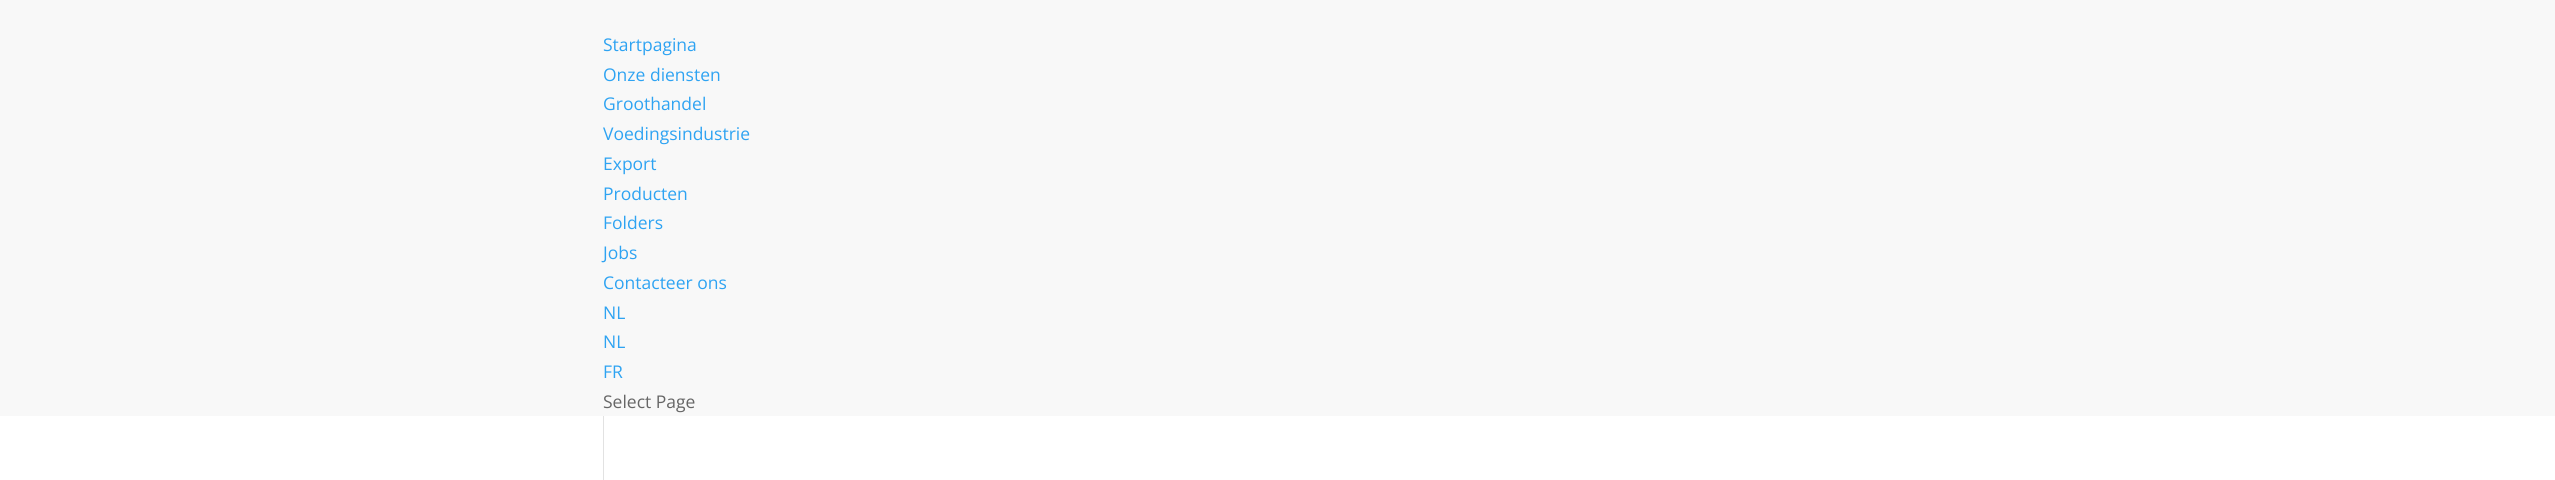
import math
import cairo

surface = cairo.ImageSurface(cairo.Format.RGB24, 2555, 480)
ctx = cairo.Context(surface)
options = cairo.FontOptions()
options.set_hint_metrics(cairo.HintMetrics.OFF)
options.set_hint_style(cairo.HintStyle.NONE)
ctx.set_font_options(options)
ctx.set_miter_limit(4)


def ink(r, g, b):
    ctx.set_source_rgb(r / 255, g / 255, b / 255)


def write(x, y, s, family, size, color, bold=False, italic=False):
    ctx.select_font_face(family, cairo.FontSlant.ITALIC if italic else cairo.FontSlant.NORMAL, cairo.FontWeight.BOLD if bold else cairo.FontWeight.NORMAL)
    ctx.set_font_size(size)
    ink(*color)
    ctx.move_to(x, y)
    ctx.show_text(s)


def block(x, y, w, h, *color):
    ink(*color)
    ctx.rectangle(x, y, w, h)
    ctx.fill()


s1 = dict(family="Open Sans", size=17.5, color=(46, 163, 242))
s2 = dict(family="Open Sans", size=17.5, color=(102, 102, 102))

ink(248, 248, 248)
ctx.paint()
write(603, 51, "Startpagina", **s1)
write(603, 81, "Onze diensten", **s1)
write(603, 110, "Groothandel", **s1)
write(603, 140, "Voedingsindustrie", **s1)
write(603, 170, "Export", **s1)
write(603, 200, "Producten", **s1)
write(603, 229, "Folders", **s1)
write(603, 259, "Jobs", **s1)
write(603, 289, "Contacteer ons", **s1)
write(603, 319, "NL", **s1)
write(603, 348, "NL", **s1)
write(603, 378, "FR", **s1)
write(603, 408, "Select Page", **s2)
block(0, 416, 2555, 64, 255, 255, 255)
block(603, 416, 1, 64, 226, 226, 226)
surface.write_to_png("screenshot.png")
